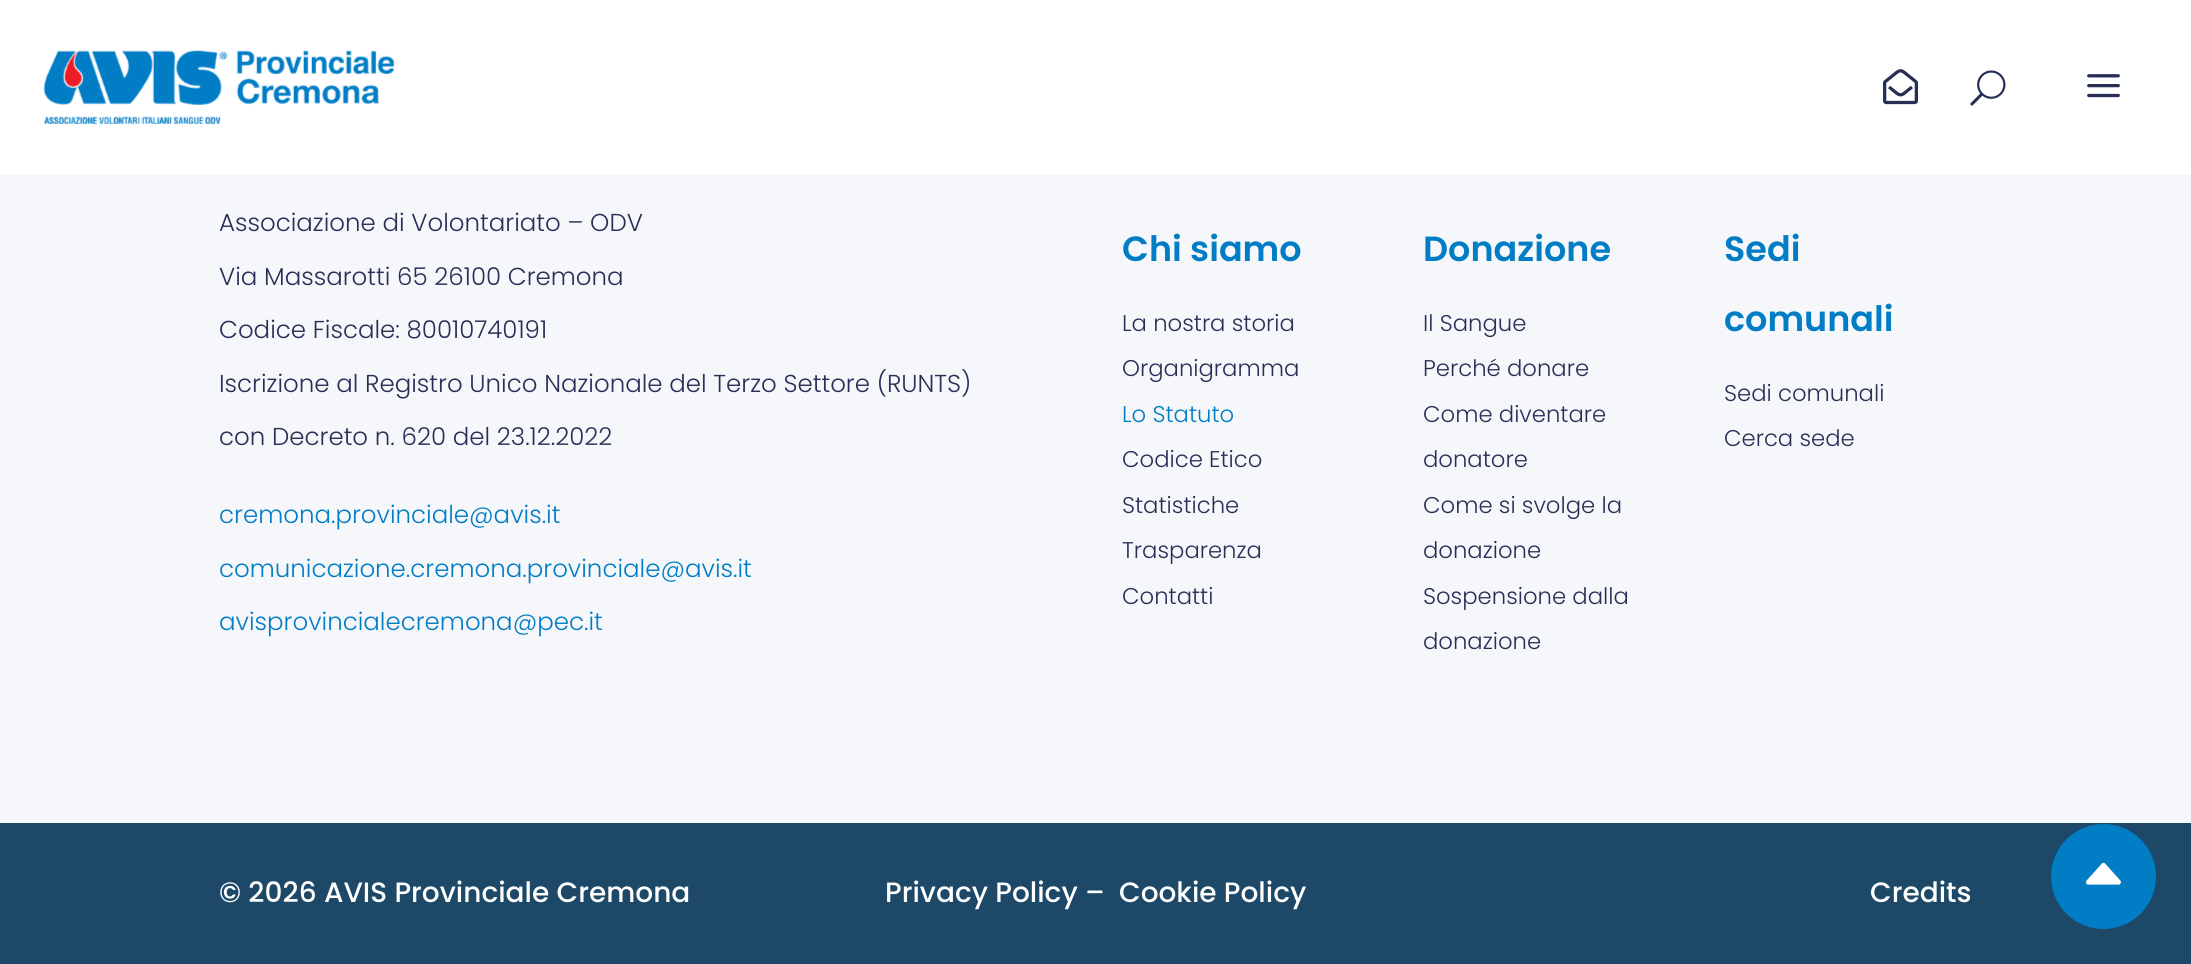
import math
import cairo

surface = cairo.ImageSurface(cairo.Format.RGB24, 2191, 964)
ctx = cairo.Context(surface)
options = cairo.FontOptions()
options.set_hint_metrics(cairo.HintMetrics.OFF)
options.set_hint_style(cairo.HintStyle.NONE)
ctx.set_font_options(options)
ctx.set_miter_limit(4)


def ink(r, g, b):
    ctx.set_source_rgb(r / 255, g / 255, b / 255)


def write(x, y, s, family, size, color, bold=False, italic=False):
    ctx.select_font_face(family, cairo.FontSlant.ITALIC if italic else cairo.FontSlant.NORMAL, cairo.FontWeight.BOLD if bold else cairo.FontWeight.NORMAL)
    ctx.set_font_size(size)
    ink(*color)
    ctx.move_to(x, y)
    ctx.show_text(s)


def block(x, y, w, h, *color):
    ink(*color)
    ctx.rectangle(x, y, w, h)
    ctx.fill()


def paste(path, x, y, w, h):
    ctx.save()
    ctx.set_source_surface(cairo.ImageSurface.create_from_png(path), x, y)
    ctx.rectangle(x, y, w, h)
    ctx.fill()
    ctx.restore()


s1 = dict(family="Poppins Light", size=24.5, color=(40, 47, 87))
s2 = dict(family="Poppins Light", size=24.5, color=(0, 125, 196))
s3 = dict(family="Poppins SemiBold", size=35, color=(0, 125, 196))
s4 = dict(family="Poppins Light", size=22.75, color=(40, 47, 87))
s5 = dict(family="Poppins Light", size=22.75, color=(0, 125, 196))
s6 = dict(family="Poppins Medium", size=28, color=(255, 255, 255))

ink(246, 247, 250)
ctx.paint()
block(0, 0, 2191, 175, 255, 255, 255)
paste("pic1.png", 43, 50, 351, 75)
paste("pic2.png", 1883, 69, 35, 36)
paste("pic3.png", 1970, 70, 36, 36)
paste("pic4.png", 2087, 74, 33, 24)
write(219, 231, "Associazione di Volontariato – ODV", **s1)
write(219, 285, "Via Massarotti 65 26100 Cremona", **s1)
write(219, 338, "Codice Fiscale: 80010740191", **s1)
write(219, 392, "Iscrizione al Registro Unico Nazionale del Terzo Settore (RUNTS)", **s1)
write(219, 445, "con Decreto n. 620 del 23.12.2022", **s1)
write(219, 523, "cremona.provinciale@avis.it", **s2)
write(219, 577, "comunicazione.cremona.provinciale@avis.it", **s2)
write(219, 630, "avisprovincialecremona@pec.it", **s2)
write(1122, 261, "Chi siamo", **s3)
write(1122, 331, "La nostra storia", **s4)
write(1122, 376, "Organigramma", **s4)
write(1122, 422, "Lo Statuto", **s5)
write(1122, 467, "Codice Etico", **s4)
write(1122, 513, "Statistiche", **s4)
write(1122, 558, "Trasparenza", **s4)
write(1122, 604, "Contatti", **s4)
write(1423, 261, "Donazione", **s3)
write(1423, 331, "Il Sangue", **s4)
write(1423, 376, "Perché donare", **s4)
write(1423, 422, "Come diventare", **s4)
write(1423, 467, "donatore", **s4)
write(1423, 513, "Come si svolge la", **s4)
write(1423, 558, "donazione", **s4)
write(1423, 604, "Sospensione dalla", **s4)
write(1423, 649, "donazione", **s4)
write(1724, 261, "Sedi", **s3)
write(1724, 331, "comunali", **s3)
write(1724, 401, "Sedi comunali", **s4)
write(1724, 446, "Cerca sede", **s4)
block(0, 823, 2191, 141, 29, 72, 103)
write(219, 902, "© 2026 AVIS Provinciale Cremona", **s6)
write(885, 902, "Privacy Policy –", **s6)
write(1119, 902, "Cookie Policy", **s6)
write(1870, 902, "Credits", **s6)
ink(0, 125, 196)
ctx.new_path()
ctx.arc(2103.5, 876.5, 52.5, 0, 2 * math.pi)
ctx.fill()
paste("pic5.png", 2086, 862, 35, 23)
surface.write_to_png("screenshot.png")
